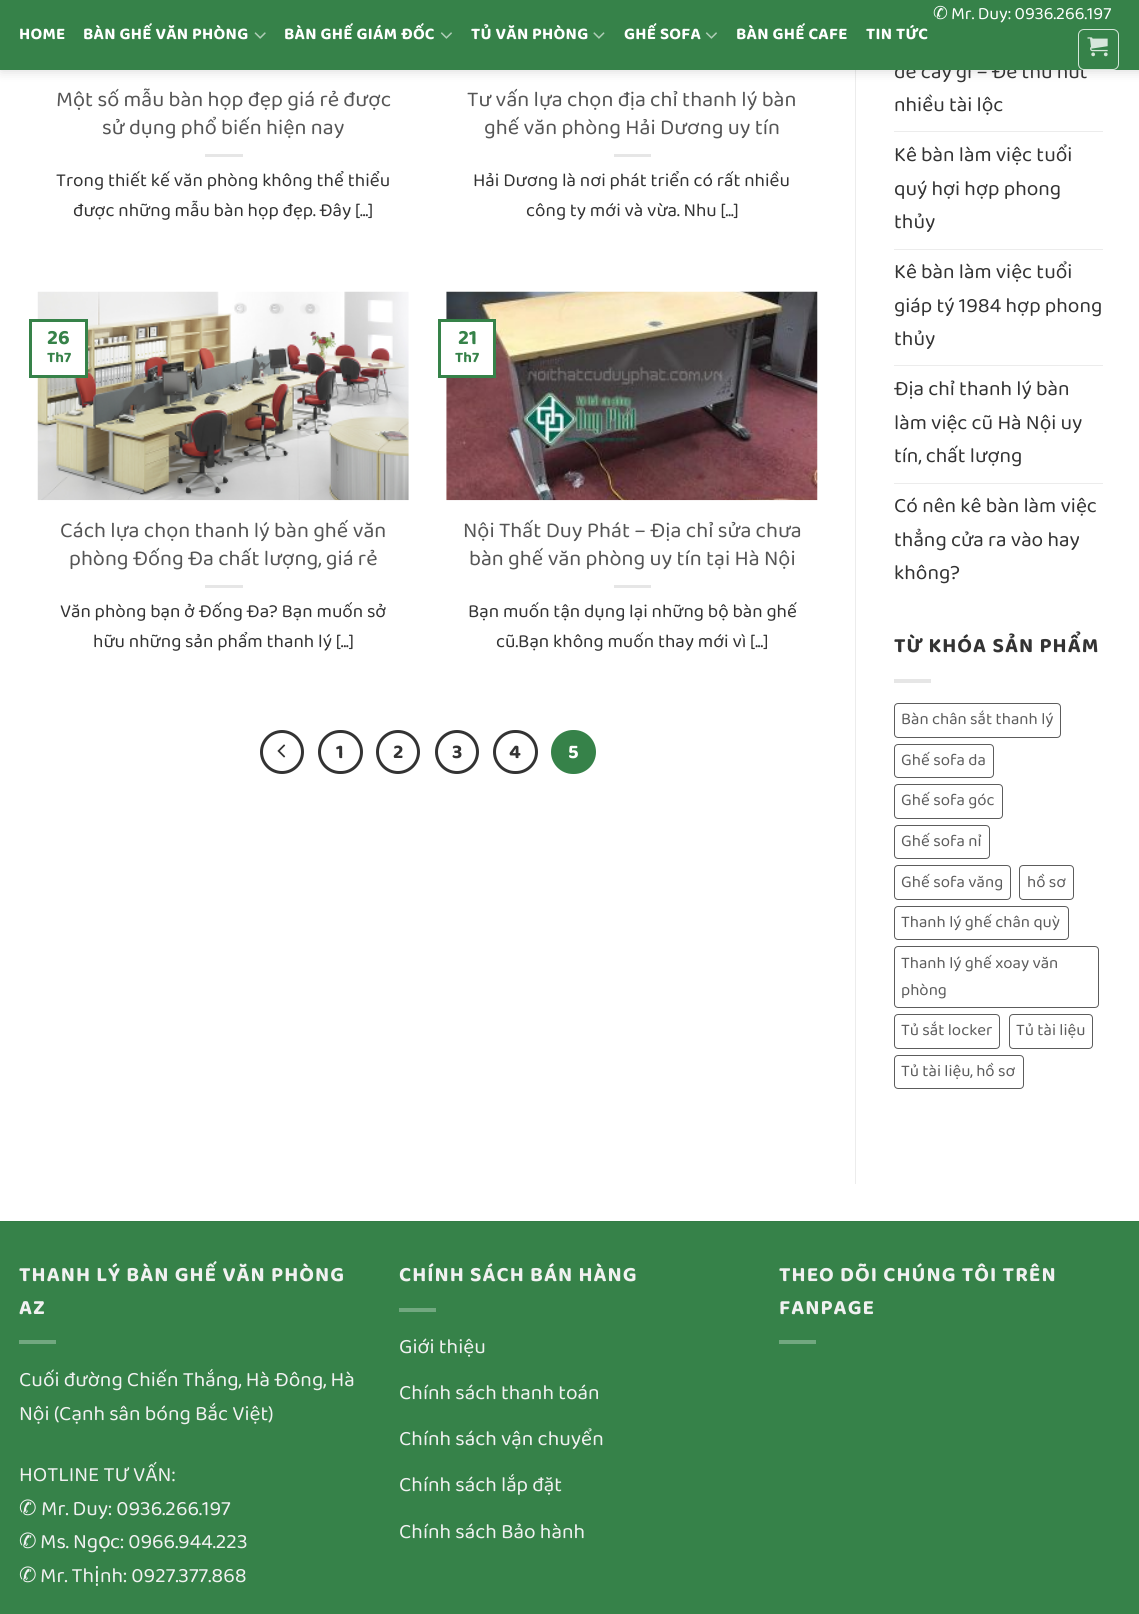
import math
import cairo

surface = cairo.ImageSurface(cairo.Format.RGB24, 1139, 1614)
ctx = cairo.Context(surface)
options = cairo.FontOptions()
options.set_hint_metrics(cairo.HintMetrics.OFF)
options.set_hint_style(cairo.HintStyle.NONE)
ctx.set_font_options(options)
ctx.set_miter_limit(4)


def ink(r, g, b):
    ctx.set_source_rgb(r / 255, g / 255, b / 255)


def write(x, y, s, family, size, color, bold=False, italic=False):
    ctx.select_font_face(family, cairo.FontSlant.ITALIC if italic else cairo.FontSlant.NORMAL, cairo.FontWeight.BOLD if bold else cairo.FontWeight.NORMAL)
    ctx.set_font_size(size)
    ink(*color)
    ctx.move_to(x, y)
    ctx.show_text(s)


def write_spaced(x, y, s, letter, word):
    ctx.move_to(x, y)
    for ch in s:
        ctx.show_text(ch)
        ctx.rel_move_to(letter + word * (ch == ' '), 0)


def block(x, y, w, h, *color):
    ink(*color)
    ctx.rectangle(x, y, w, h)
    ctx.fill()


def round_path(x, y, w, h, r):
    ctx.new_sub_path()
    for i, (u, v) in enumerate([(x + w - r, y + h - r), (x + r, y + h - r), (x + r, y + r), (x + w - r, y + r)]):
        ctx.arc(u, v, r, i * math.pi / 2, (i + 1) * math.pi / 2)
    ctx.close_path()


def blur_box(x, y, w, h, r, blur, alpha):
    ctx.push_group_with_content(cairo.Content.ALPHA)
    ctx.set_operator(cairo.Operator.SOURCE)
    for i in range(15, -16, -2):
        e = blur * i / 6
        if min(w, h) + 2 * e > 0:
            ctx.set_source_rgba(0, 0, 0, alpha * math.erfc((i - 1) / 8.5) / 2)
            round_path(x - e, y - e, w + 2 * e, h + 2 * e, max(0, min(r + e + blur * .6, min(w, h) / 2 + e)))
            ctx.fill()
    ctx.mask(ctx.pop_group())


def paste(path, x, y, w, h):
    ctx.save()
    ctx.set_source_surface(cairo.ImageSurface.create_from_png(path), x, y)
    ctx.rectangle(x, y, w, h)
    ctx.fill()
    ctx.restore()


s1 = dict(family="Baloo 2", size=21, color=(51, 51, 51))
s2 = dict(family="DejaVu Sans", size=17.75, color=(255, 255, 255))
s3 = dict(family="Baloo 2", size=17.75, color=(255, 255, 255))
s4 = dict(family="Baloo 2", size=21.75, color=(85, 85, 85))
s5 = dict(family="Baloo 2", size=18.9, color=(51, 51, 51))
s6 = dict(family="Baloo 2", size=21, color=(54, 130, 73), bold=True)
s7 = dict(family="Baloo 2", size=15, color=(54, 130, 73), bold=True)
s8 = dict(family="Baloo 2", size=20, color=(51, 51, 51), bold=True)
s9 = dict(family="Baloo 2", size=20, color=(255, 255, 255), bold=True)
s10 = dict(family="Baloo 2", size=16.75, color=(92, 92, 92))
s11 = dict(family="Baloo 2", size=21, color=(241, 241, 241))
s12 = dict(family="DejaVu Sans", size=21, color=(241, 241, 241))

ink(255, 255, 255)
ctx.paint()
block(855, 70, 1, 1114, 236, 236, 236)
ink(0, 0, 0)
blur_box(1, 1, 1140, 70, 0, 6, 0.15)
write(894, 78, "để cây gì – Để thu hút", **s1)
block(0, 0, 1139, 70, 54, 130, 73)
write(933, 19, "✆", **s2)
write(951, 19, "Mr. Duy: 0936.266.197", **s3)
round_path(1078.5, 29.5, 40, 40, 5.5)
ink(215, 230, 219)
ctx.set_line_width(1)
ctx.stroke()
paste("pic1.png", 1087, 37, 21, 20)
ctx.select_font_face("Baloo 2", cairo.FontSlant.NORMAL, cairo.FontWeight.BOLD)
ctx.set_font_size(16.75)
ink(255, 255, 255)
write_spaced(19, 39, "HOME", 0.3, 0)
write_spaced(83, 39, "BÀN GHẾ VĂN PHÒNG", 0.3, 0)
paste("pic2.png", 254, 32, 12, 7)
write_spaced(284, 39, "BÀN GHẾ GIÁM ĐỐC", 0.3, 0)
paste("pic3.png", 440, 32, 12, 7)
write_spaced(471, 39, "TỦ VĂN PHÒNG", 0.3, 0)
paste("pic4.png", 593, 32, 12, 7)
write_spaced(624, 39, "GHẾ SOFA", 0.3, 0)
paste("pic3.png", 705, 32, 12, 7)
write_spaced(736, 39, "BÀN GHẾ CAFE", 0.3, 0)
write_spaced(866, 39, "TIN TỨC", 0.3, 0)
write(56, 106, "Một số mẫu bàn họp đẹp giá rẻ được", **s4)
write(102, 134, "sử dụng phổ biến hiện nay", **s4)
block(205, 154, 38, 3, 230, 230, 230)
write(56, 186, "Trong thiết kế văn phòng không thể thiểu", **s5)
write(73, 216, "được những mẫu bàn họp đẹp. Đây [...]", **s5)
write(467, 106, "Tư vấn lựa chọn địa chỉ thanh lý bàn", **s4)
write(484, 134, "ghế văn phòng Hải Dương uy tín", **s4)
block(614, 154, 37, 3, 230, 230, 230)
write(473, 186, "Hải Dương là nơi phát triển có rất nhiều", **s5)
write(526, 216, "công ty mới và vừa. Nhu [...]", **s5)
paste("pic5.png", 37, 291, 372, 210)
block(37, 322, 48, 53, 255, 255, 255)
ctx.rectangle(30.5, 320.5, 56, 56)
ink(54, 130, 73)
ctx.set_line_width(3)
ctx.stroke()
write(47, 344, "26", **s6)
write(47, 362, "Th7", **s7)
write(60, 537, "Cách lựa chọn thanh lý bàn ghế văn", **s4)
write(69, 565, "phòng Đống Đa chất lượng, giá rẻ", **s4)
block(205, 585, 38, 3, 230, 230, 230)
write(60, 617, "Văn phòng bạn ở Đống Đa? Bạn muốn sở", **s5)
write(93, 647, "hữu những sản phẩm thanh lý [...]", **s5)
paste("pic6.png", 446, 291, 372, 210)
block(446, 322, 47, 53, 255, 255, 255)
ctx.rectangle(439.5, 320.5, 55, 56)
ink(54, 130, 73)
ctx.stroke()
write(458, 344, "21", **s6)
write(455, 362, "Th7", **s7)
write(463, 537, "Nội Thất Duy Phát – Địa chỉ sửa chưa", **s4)
write(469, 565, "bàn ghế văn phòng uy tín tại Hà Nội", **s4)
block(614, 585, 37, 3, 230, 230, 230)
write(468, 617, "Bạn muốn tận dụng lại những bộ bàn ghế", **s5)
write(496, 647, "cũ.Bạn không muốn thay mới vì [...]", **s5)
ctx.new_path()
ctx.arc(282, 752, 20.5, 0, 2 * math.pi)
ctx.stroke()
paste("pic7.png", 277, 744, 9, 14)
round_path(319.5, 731.5, 42, 41, 20.5)
ctx.stroke()
write(336, 758, "1", **s8)
ctx.new_path()
ctx.arc(398, 752, 20.5, 0, 2 * math.pi)
ctx.stroke()
write(393, 758, "2", **s8)
ctx.new_path()
ctx.arc(457, 752, 20.5, 0, 2 * math.pi)
ctx.stroke()
write(452, 758, "3", **s8)
round_path(494.5, 731.5, 42, 41, 20.5)
ctx.stroke()
write(509, 758, "4", **s8)
ink(54, 130, 73)
round_path(552.5, 731.5, 42, 41, 20.5)
ctx.fill_preserve()
ctx.stroke()
write(568, 758, "5", **s9)
write(894, 111, "nhiều tài lộc", **s1)
block(894, 131, 209, 1, 236, 236, 236)
write(894, 161, "Kê bàn làm việc tuổi", **s1)
write(894, 195, "quý hợi hợp phong", **s1)
write(894, 228, "thủy", **s1)
block(894, 249, 209, 1, 236, 236, 236)
write(894, 278, "Kê bàn làm việc tuổi", **s1)
write(894, 312, "giáp tý 1984 hợp phong", **s1)
write(894, 345, "thủy", **s1)
block(894, 365, 209, 1, 236, 236, 236)
write(894, 395, "Địa chỉ thanh lý bàn", **s1)
write(894, 429, "làm việc cũ Hà Nội uy", **s1)
write(894, 462, "tín, chất lượng", **s1)
block(894, 483, 209, 1, 236, 236, 236)
write(894, 512, "Có nên kê bàn làm việc", **s1)
write(894, 546, "thẳng cửa ra vào hay", **s1)
write(894, 579, "không?", **s1)
ctx.select_font_face("Baloo 2", cairo.FontSlant.NORMAL, cairo.FontWeight.BOLD)
write_spaced(894, 652, "TỪ KHÓA SẢN PHẨM", 1.05, 0)
block(894, 679, 37, 4, 230, 230, 230)
round_path(894.5, 703.5, 166, 34, 3.5)
ink(92, 92, 92)
ctx.set_line_width(1)
ctx.stroke()
write(901, 724, "Bàn chân sắt thanh lý", **s10)
round_path(894.5, 744.5, 99, 33, 3.5)
ctx.stroke()
write(901, 765, "Ghế sofa da", **s10)
round_path(894.5, 784.5, 108, 34, 3.5)
ctx.stroke()
write(901, 805, "Ghế sofa góc", **s10)
round_path(894.5, 825.5, 95, 33, 3.5)
ctx.stroke()
write(901, 846, "Ghế sofa nỉ", **s10)
round_path(894.5, 865.5, 116, 34, 3.5)
ctx.stroke()
write(901, 887, "Ghế sofa văng", **s10)
round_path(1019.5, 865.5, 54, 34, 3.5)
ctx.stroke()
write(1027, 887, "hồ sơ", **s10)
round_path(894.5, 906.5, 174, 33, 3.5)
ctx.stroke()
write(901, 927, "Thanh lý ghế chân quỳ", **s10)
round_path(894.5, 946.5, 204, 61, 3.5)
ctx.stroke()
write(901, 968, "Thanh lý ghế xoay văn", **s10)
write(901, 995, "phòng", **s10)
round_path(894.5, 1014.5, 105, 34, 3.5)
ctx.stroke()
write(901, 1035, "Tủ sắt locker", **s10)
round_path(1009.5, 1014.5, 83, 34, 3.5)
ctx.stroke()
write(1016, 1035, "Tủ tài liệu", **s10)
round_path(894.5, 1055.5, 129, 33, 3.5)
ctx.stroke()
write(901, 1076, "Tủ tài liệu, hồ sơ", **s10)
block(0, 1222, 1139, 392, 54, 130, 73)
block(0, 1221, 1139, 1, 51, 124, 69)
ctx.select_font_face("Baloo 2", cairo.FontSlant.NORMAL, cairo.FontWeight.BOLD)
ctx.set_font_size(21)
ink(241, 241, 241)
write_spaced(19, 1281, "THANH LÝ BÀN GHẾ VĂN PHÒNG", 1.05, 0)
write_spaced(19, 1314, "AZ", 1.05, 0)
block(19, 1340, 37, 4, 114, 168, 128)
write(19, 1386, "Cuối đường Chiến Thắng, Hà Đông, Hà", **s11)
write(19, 1420, "Nội (Cạnh sân bóng Bắc Việt)", **s11)
write(19, 1481, "HOTLINE TƯ VẤN:", **s11)
write(19, 1515, "✆", **s12)
write(41, 1515, "Mr. Duy: 0936.266.197", **s11)
write(19, 1548, "✆", **s12)
write(40, 1548, "Ms. Ng", **s11)
write(98, 1548, "ọ", **s12)
write(110, 1548, "c: 0966.944.223", **s11)
write(19, 1582, "✆", **s12)
write(40, 1582, "Mr. Th", **s11)
write(94, 1582, "ị", **s12)
write(100, 1582, "nh: 0927.377.868", **s11)
ctx.select_font_face("Baloo 2", cairo.FontSlant.NORMAL, cairo.FontWeight.BOLD)
write_spaced(399, 1281, "CHÍNH SÁCH BÁN HÀNG", 1.05, 0)
block(399, 1308, 37, 4, 114, 168, 128)
write(399, 1353, "Giới thiệu", **s11)
write(399, 1399, "Chính sách thanh toán", **s11)
write(399, 1445, "Chính sách vận chuyển", **s11)
write(399, 1491, "Chính sách lắp đặt", **s11)
write(399, 1538, "Chính sách Bảo hành", **s11)
ctx.select_font_face("Baloo 2", cairo.FontSlant.NORMAL, cairo.FontWeight.BOLD)
write_spaced(779, 1281, "THEO DÕI CHÚNG TÔI TRÊN", 1.05, 0)
write_spaced(779, 1314, "FANPAGE", 1.05, 0)
block(779, 1340, 37, 4, 114, 168, 128)
surface.write_to_png("screenshot.png")
